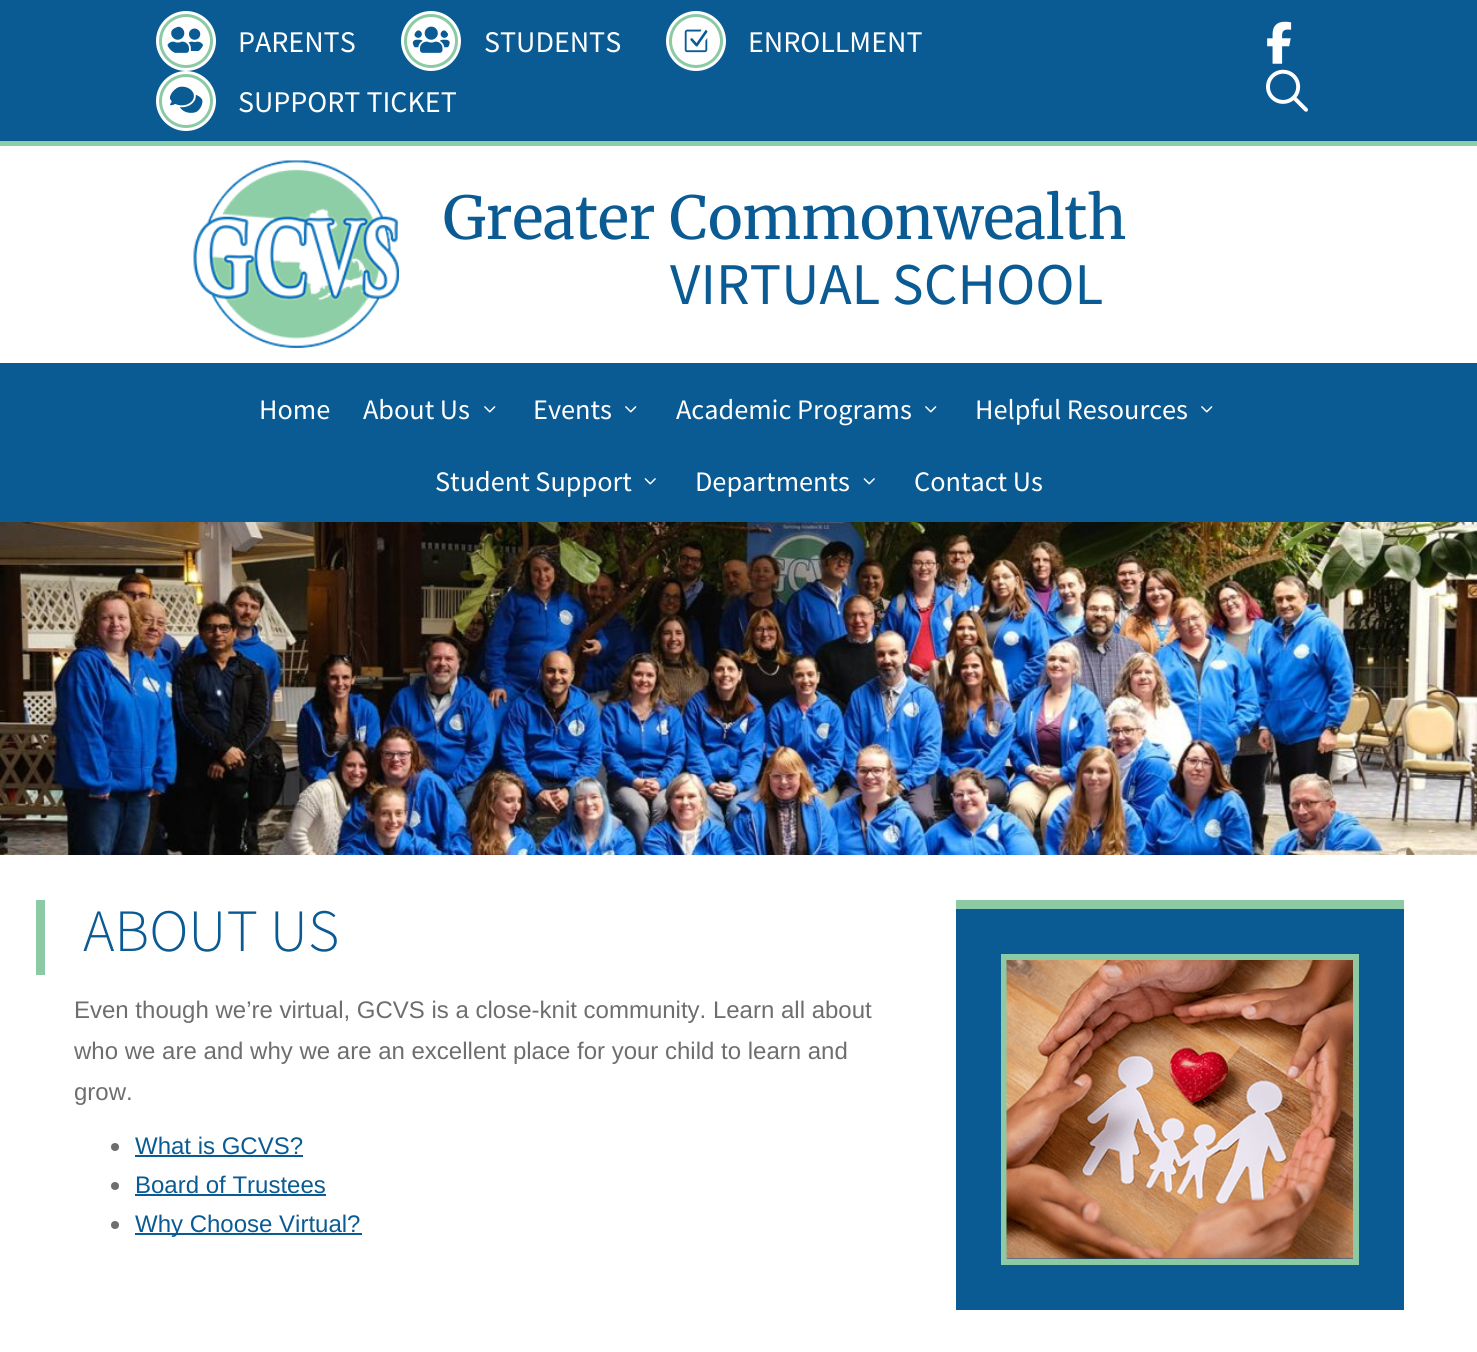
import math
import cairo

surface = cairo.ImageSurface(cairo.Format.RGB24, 1477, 1352)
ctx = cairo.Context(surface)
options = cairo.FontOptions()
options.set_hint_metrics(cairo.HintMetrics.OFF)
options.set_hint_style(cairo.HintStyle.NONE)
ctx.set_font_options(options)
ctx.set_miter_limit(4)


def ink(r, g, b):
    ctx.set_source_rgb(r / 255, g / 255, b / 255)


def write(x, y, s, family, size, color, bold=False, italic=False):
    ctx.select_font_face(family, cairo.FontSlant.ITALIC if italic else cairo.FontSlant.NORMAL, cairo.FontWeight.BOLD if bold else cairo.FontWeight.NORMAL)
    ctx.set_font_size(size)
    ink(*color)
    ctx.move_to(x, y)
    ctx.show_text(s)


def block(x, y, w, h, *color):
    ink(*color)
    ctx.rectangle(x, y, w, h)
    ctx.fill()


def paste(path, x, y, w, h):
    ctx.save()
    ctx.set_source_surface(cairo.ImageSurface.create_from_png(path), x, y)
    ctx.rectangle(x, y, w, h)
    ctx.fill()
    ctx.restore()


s1 = dict(family="Source Sans Pro", size=30, color=(255, 255, 255))
s2 = dict(family="Merriweather", size=59.1, color=(10, 91, 148))
s3 = dict(family="Source Sans Pro", size=59.1, color=(10, 91, 148))
s4 = dict(family="Source Sans Pro", size=28.25, color=(255, 255, 255))
s5 = dict(family="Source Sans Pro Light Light", size=60, color=(10, 91, 148))
s6 = dict(family="Liberation Sans", size=24, color=(110, 110, 110))
s7 = dict(family="Liberation Sans", size=24, color=(10, 91, 148))

ink(255, 255, 255)
ctx.paint()
block(0, 0, 1477, 141, 10, 91, 148)
ink(255, 255, 255)
ctx.arc(186, 41, 28.5, 0, 2 * math.pi)
ctx.fill_preserve()
ctx.set_line_width(3)
ctx.stroke()
ctx.arc(186, 41, 25.5, 0, 2 * math.pi)
ink(139, 202, 164)
ctx.stroke()
paste("pic1.png", 167, 26, 36, 27)
write(238, 52, "PARENTS", **s1)
ctx.new_path()
ctx.arc(431, 41, 28.5, 0, 2 * math.pi)
ctx.fill_preserve()
ctx.stroke()
ctx.arc(431, 41, 25.5, 0, 2 * math.pi)
ink(139, 202, 164)
ctx.stroke()
paste("pic2.png", 412, 26, 38, 27)
write(484, 52, "STUDENTS", **s1)
ctx.new_path()
ctx.arc(696, 41, 28.5, 0, 2 * math.pi)
ctx.fill_preserve()
ctx.stroke()
ctx.arc(696, 41, 25.5, 0, 2 * math.pi)
ink(139, 202, 164)
ctx.stroke()
paste("pic3.png", 684, 29, 24, 24)
write(748, 52, "ENROLLMENT", **s1)
ctx.new_path()
ctx.arc(186, 101, 28.5, 0, 2 * math.pi)
ctx.fill_preserve()
ctx.stroke()
ctx.arc(186, 101, 25.5, 0, 2 * math.pi)
ink(139, 202, 164)
ctx.stroke()
paste("pic4.png", 169, 86, 34, 27)
write(238, 112, "SUPPORT TICKET", **s1)
paste("pic5.png", 1267, 21, 25, 43)
paste("pic6.png", 1266, 69, 42, 43)
block(0, 141, 1477, 5, 142, 206, 167)
paste("pic7.png", 193, 160, 206, 188)
write(443, 239, "Greater Commonwealth", **s2)
write(670, 304, "VIRTUAL SCHOOL", **s3)
block(0, 363, 1477, 159, 10, 91, 148)
write(259, 419, "Home", **s4)
write(363, 419, "About Us", **s4)
paste("pic8.png", 484, 406, 12, 7)
write(533, 419, "Events", **s4)
paste("pic8.png", 625, 406, 12, 7)
write(676, 419, "Academic Programs", **s4)
paste("pic8.png", 925, 406, 12, 7)
write(975, 419, "Helpful Resources", **s4)
paste("pic8.png", 1201, 406, 12, 7)
write(435, 491, "Student Support", **s4)
paste("pic9.png", 644, 478, 12, 7)
write(695, 491, "Departments", **s4)
paste("pic9.png", 863, 478, 12, 7)
write(914, 491, "Contact Us", **s4)
paste("pic10.png", 0, 522, 1477, 333)
block(36, 900, 9, 75, 139, 202, 164)
write(83, 951, "ABOUT US", **s5)
write(74, 1018, "Even though we’re virtual, GCVS is a close-knit community. Learn all about", **s6)
write(74, 1059, "who we are and why we are an excellent place for your child to learn and", **s6)
write(74, 1100, "grow.", **s6)
ctx.new_path()
ctx.arc(115, 1147, 4, 0, 2 * math.pi)
ctx.fill()
write(135, 1154, "What is GCVS?", **s7)
block(135, 1155, 168, 2, 10, 91, 148)
ink(110, 110, 110)
ctx.new_path()
ctx.arc(115, 1186, 4, 0, 2 * math.pi)
ctx.fill()
write(135, 1193, "Board of Trustees", **s7)
block(135, 1194, 191, 2, 10, 91, 148)
ink(110, 110, 110)
ctx.new_path()
ctx.arc(115, 1225, 4, 0, 2 * math.pi)
ctx.fill()
block(135, 1233, 227, 2, 10, 91, 148)
write(135, 1232, "Why Choose Virtual?", **s7)
block(956, 909, 448, 401, 10, 91, 148)
block(956, 900, 448, 9, 139, 202, 164)
ctx.rectangle(1004, 957, 352, 305)
ctx.set_line_width(6)
ctx.stroke()
paste("pic11.png", 1006, 960, 347, 299)
surface.write_to_png("screenshot.png")
